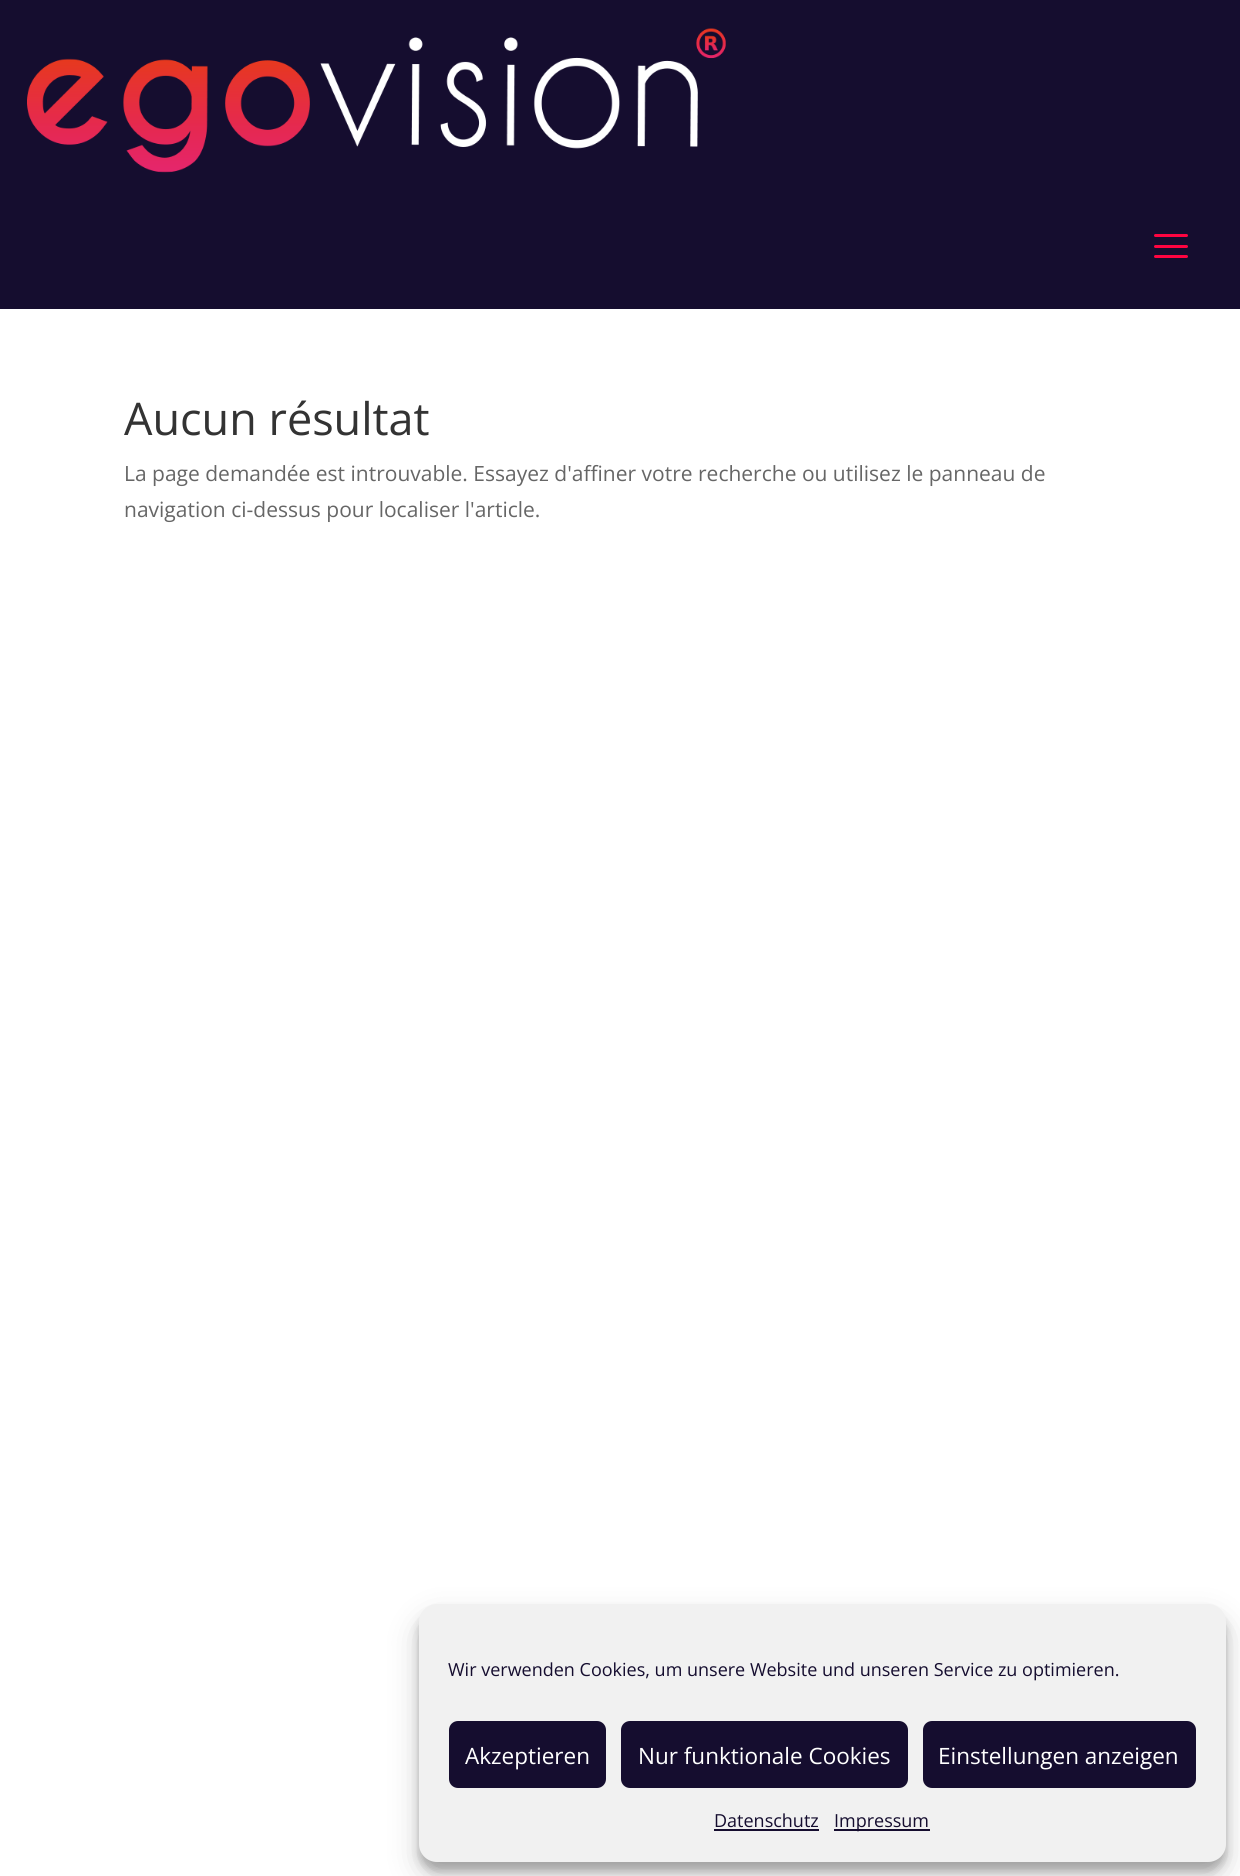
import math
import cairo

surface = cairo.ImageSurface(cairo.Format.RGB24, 1240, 1876)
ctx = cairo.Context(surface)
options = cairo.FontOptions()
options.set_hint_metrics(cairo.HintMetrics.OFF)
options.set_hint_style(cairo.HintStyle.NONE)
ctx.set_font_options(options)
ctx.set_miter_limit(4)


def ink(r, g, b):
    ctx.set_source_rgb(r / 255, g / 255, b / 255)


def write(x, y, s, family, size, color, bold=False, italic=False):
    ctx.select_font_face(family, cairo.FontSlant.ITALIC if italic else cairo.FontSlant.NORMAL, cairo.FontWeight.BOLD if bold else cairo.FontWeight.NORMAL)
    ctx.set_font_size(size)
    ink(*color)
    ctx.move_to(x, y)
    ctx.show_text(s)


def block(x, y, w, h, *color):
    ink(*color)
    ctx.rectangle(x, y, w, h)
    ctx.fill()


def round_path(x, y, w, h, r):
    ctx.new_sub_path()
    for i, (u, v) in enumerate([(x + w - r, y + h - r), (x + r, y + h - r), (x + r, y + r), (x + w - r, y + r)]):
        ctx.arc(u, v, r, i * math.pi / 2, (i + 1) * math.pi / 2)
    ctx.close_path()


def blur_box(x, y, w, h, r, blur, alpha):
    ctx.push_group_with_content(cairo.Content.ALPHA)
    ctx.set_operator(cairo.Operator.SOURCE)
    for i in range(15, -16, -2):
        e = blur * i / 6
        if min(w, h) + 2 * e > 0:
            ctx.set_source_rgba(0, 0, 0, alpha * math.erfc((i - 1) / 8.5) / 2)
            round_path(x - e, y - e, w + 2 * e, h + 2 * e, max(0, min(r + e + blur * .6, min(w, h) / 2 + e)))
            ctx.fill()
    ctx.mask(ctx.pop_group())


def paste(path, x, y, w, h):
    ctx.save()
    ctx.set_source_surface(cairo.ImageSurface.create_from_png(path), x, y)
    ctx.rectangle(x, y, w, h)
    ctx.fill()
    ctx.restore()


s1 = dict(family="Open Sans", size=45, color=(51, 51, 51))
s2 = dict(family="Open Sans", size=21, color=(102, 102, 102))
s3 = dict(family="Open Sans", size=18, color=(21, 13, 47))
s4 = dict(family="Open Sans", size=22.5, color=(255, 255, 255))

ink(255, 255, 255)
ctx.paint()
block(0, 0, 1240, 309, 21, 13, 47)
paste("pic1.png", 27, 28, 699, 145)
ink(255, 4, 65)
round_path(1154, 234, 34, 3, 1.5)
ctx.fill()
round_path(1154, 245, 34, 3, 1.5)
ctx.fill()
round_path(1154, 255, 34, 3, 1.5)
ctx.fill()
write(124, 435, "Aucun résultat", **s1)
write(124, 481, "La page demandée est introuvable. Essayez d'affiner votre recherche ou utilisez le panneau de", **s2)
write(124, 517, "navigation ci-dessus pour localiser l'article.", **s2)
ink(0, 0, 0)
blur_box(419, 1613, 807, 258, 18, 4.5, 0.23)
blur_box(419, 1619, 807, 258, 18, 15, 0.19)
ink(241, 241, 241)
round_path(419, 1604, 807, 258, 18)
ctx.fill()
write(448, 1676, "Wir verwenden Cookies, um unsere Website und unseren Service zu optimieren.", **s3)
round_path(450, 1722, 155, 65, 8)
ctx.fill_preserve()
ctx.stroke()
write(465, 1764, "Akzeptieren", **s4)
ink(21, 13, 47)
round_path(622, 1722, 285, 65, 8)
ctx.fill_preserve()
ctx.stroke()
write(638, 1764, "Nur funktionale Cookies", **s4)
ink(21, 13, 47)
round_path(924, 1722, 271, 65, 8)
ctx.fill_preserve()
ctx.stroke()
write(938, 1764, "Einstellungen anzeigen", **s4)
write(714, 1827, "Datenschutz", **s3)
block(714, 1829, 105, 2, 21, 13, 47)
block(834, 1829, 96, 2, 21, 13, 47)
write(834, 1827, "Impressum", **s3)
surface.write_to_png("screenshot.png")
